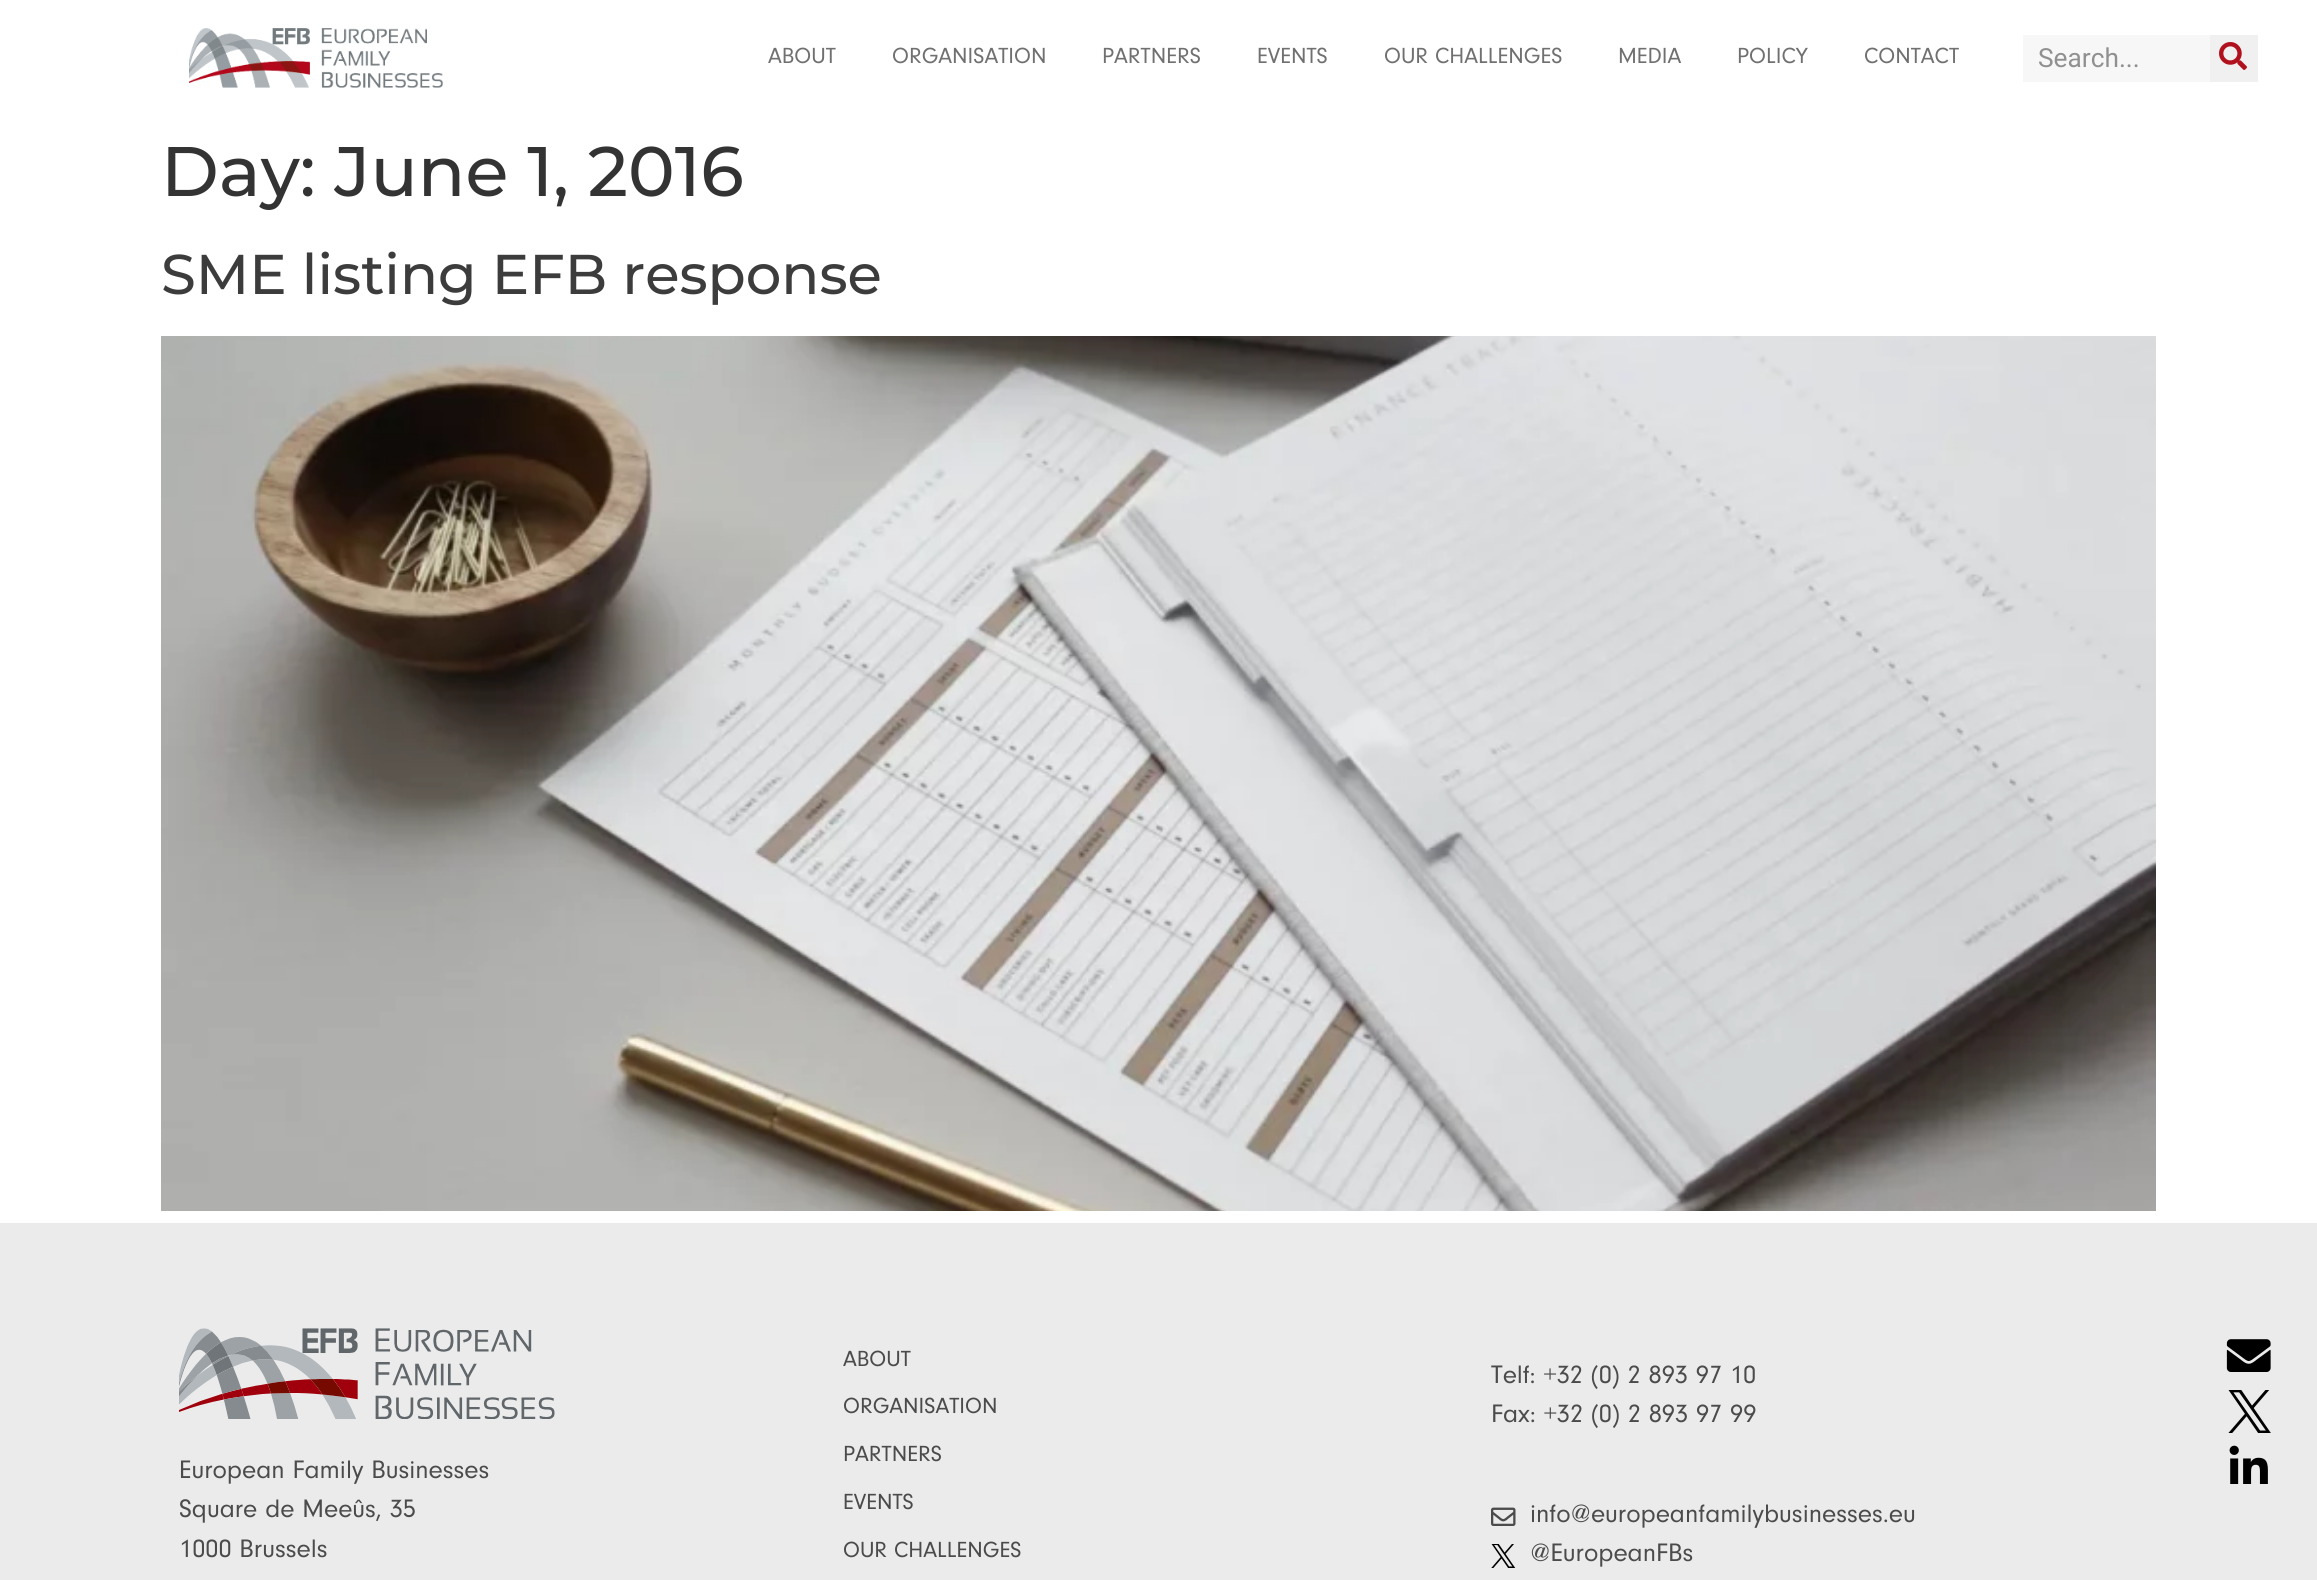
import math
import cairo

surface = cairo.ImageSurface(cairo.Format.RGB24, 2317, 1580)
ctx = cairo.Context(surface)
options = cairo.FontOptions()
options.set_hint_metrics(cairo.HintMetrics.OFF)
options.set_hint_style(cairo.HintStyle.NONE)
ctx.set_font_options(options)
ctx.set_miter_limit(4)


def ink(r, g, b):
    ctx.set_source_rgb(r / 255, g / 255, b / 255)


def write(x, y, s, family, size, color, bold=False, italic=False):
    ctx.select_font_face(family, cairo.FontSlant.ITALIC if italic else cairo.FontSlant.NORMAL, cairo.FontWeight.BOLD if bold else cairo.FontWeight.NORMAL)
    ctx.set_font_size(size)
    ink(*color)
    ctx.move_to(x, y)
    ctx.show_text(s)


def block(x, y, w, h, *color):
    ink(*color)
    ctx.rectangle(x, y, w, h)
    ctx.fill()


def paste(path, x, y, w, h):
    ctx.save()
    ctx.set_source_surface(cairo.ImageSurface.create_from_png(path), x, y)
    ctx.rectangle(x, y, w, h)
    ctx.fill()
    ctx.restore()


s1 = dict(family="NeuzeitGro", size=22.75, color=(112, 112, 112))
s2 = dict(family="Roboto", size=26.25, color=(144, 144, 144))
s3 = dict(family="Montserrat Medium", size=70, color=(51, 51, 51))
s4 = dict(family="Montserrat Medium", size=56, color=(60, 60, 60))
s5 = dict(family="NeuzeitGro", size=26.25, color=(75, 75, 75))
s6 = dict(family="NeuzeitGro", size=22.75, color=(75, 75, 75))

ink(255, 255, 255)
ctx.paint()
paste("pic1.png", 189, 28, 254, 60)
write(768, 63, "ABOUT", **s1)
write(892, 63, "ORGANISATION", **s1)
write(1102, 63, "PARTNERS", **s1)
write(1257, 63, "EVENTS", **s1)
write(1384, 63, "OUR CHALLENGES", **s1)
write(1618, 63, "MEDIA", **s1)
write(1737, 63, "POLICY", **s1)
write(1864, 63, "CONTACT", **s1)
block(2023, 35, 187, 47, 247, 247, 247)
write(2038, 67, "Search...", **s2)
block(2210, 35, 48, 47, 240, 240, 240)
paste("pic2.png", 2219, 42, 28, 28)
write(161, 196, "Day: June 1, 2016", **s3)
write(161, 294, "SME listing EFB response", **s4)
paste("pic3.png", 161, 336, 1995, 875)
block(0, 1223, 2317, 357, 235, 235, 235)
paste("pic4.png", 179, 1328, 376, 91)
write(179, 1478, "European Family Businesses", **s5)
write(179, 1517, "Square de Meeûs, 35", **s5)
write(179, 1557, "1000 Brussels", **s5)
write(843, 1366, "ABOUT", **s6)
write(843, 1413, "ORGANISATION", **s6)
write(843, 1461, "PARTNERS", **s6)
write(843, 1509, "EVENTS", **s6)
write(843, 1557, "OUR CHALLENGES", **s6)
write(1491, 1383, "Telf: +32 (0) 2 893 97 10", **s5)
write(1491, 1422, "Fax: +32 (0) 2 893 97 99", **s5)
paste("pic5.png", 1491, 1507, 25, 19)
write(1530, 1522, "info@europeanfamilybusinesses.eu", **s5)
paste("pic6.png", 1491, 1544, 25, 24)
write(1530, 1561, "@EuropeanFBs", **s5)
paste("pic7.png", 2226, 1339, 45, 33)
paste("pic8.png", 2228, 1390, 43, 43)
paste("pic9.png", 2229, 1445, 39, 39)
surface.write_to_png("screenshot.png")
